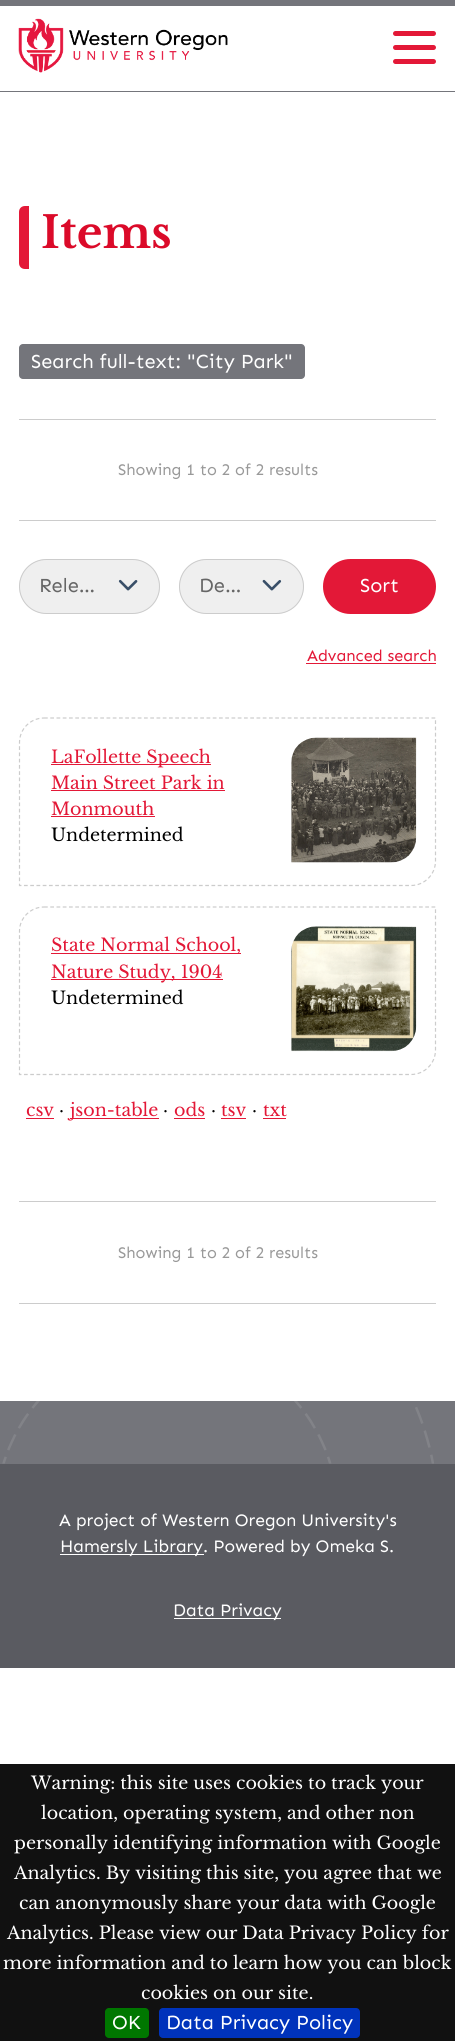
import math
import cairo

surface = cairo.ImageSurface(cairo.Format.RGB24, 455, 2041)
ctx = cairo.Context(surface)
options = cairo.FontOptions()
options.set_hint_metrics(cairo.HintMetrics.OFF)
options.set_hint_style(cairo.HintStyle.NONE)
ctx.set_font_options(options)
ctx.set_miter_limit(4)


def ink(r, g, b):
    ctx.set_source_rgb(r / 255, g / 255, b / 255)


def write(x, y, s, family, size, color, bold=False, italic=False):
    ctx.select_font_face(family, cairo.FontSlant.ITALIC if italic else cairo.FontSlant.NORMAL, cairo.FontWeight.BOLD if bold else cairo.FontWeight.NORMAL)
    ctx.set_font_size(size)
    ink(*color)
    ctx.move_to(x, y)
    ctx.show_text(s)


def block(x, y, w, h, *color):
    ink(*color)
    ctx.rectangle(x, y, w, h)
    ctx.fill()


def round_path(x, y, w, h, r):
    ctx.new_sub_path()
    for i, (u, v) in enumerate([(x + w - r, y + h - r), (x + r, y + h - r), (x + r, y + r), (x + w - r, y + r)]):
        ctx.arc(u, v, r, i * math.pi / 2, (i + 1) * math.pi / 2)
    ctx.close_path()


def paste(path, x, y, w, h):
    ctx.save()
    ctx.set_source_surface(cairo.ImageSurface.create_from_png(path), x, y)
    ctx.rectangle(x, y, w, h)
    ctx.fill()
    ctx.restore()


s1 = dict(family="Libre Baskerville", size=44, color=(219, 10, 41), bold=True)
s2 = dict(family="Sen", size=20, color=(255, 255, 255))
s3 = dict(family="Sen", size=16.25, color=(153, 153, 153))
s4 = dict(family="Sen", size=20, color=(102, 102, 102))
s5 = dict(family="Sen", size=16.25, color=(227, 24, 55))
s6 = dict(family="Libre Baskerville", size=17.5, color=(227, 24, 55))
s7 = dict(family="Libre Baskerville", size=17.5, color=(0, 0, 0))
s8 = dict(family="Sen", size=17.5, color=(255, 255, 255))
s9 = dict(family="Libre Baskerville", size=17.5, color=(255, 255, 255))

ink(255, 255, 255)
ctx.paint()
block(0, 0, 455, 6, 116, 117, 123)
block(0, 91, 455, 1, 116, 117, 123)
paste("pic1.png", 18, 18, 210, 55)
ink(227, 24, 55)
round_path(393, 31, 43, 5, 2.5)
ctx.fill()
round_path(393, 45, 43, 5, 2.5)
ctx.fill()
round_path(393, 59, 43, 5, 2.5)
ctx.fill()
ctx.new_path()
ctx.move_to(25, 206)
ctx.line_to(29, 206)
ctx.line_to(29, 269)
ctx.line_to(25, 269)
ctx.curve_to(21.5, 269, 19, 266.5, 19, 263)
ctx.line_to(19, 212)
ctx.curve_to(19, 208.5, 21.5, 206, 25, 206)
ctx.close_path()
ctx.fill()
write(41, 248, "Items", **s1)
ink(116, 117, 123)
round_path(19, 344, 286, 35, 4)
ctx.fill()
write(31, 368, "Search full-text: \"City Park\"", **s2)
block(19, 419, 417, 1, 204, 204, 204)
block(19, 520, 417, 1, 204, 204, 204)
write(118, 475, "Showing 1 to 2 of 2 results", **s3)
ink(239, 239, 239)
round_path(19, 559, 141, 55, 27.5)
ctx.fill()
paste("pic2.png", 118, 579, 20, 12)
round_path(19.5, 559.5, 140, 54, 27)
ink(204, 204, 204)
ctx.set_line_width(1)
ctx.stroke()
write(39, 592, "Rele…", **s4)
ink(239, 239, 239)
round_path(179, 559, 125, 55, 27.5)
ctx.fill()
paste("pic3.png", 262, 579, 20, 12)
round_path(179.5, 559.5, 124, 54, 27)
ink(204, 204, 204)
ctx.stroke()
write(199, 592, "De…", **s4)
ink(227, 24, 55)
round_path(323, 559, 113, 55, 27.5)
ctx.fill()
write(360, 592, "Sort", **s2)
write(307, 661, "Advanced search", **s5)
block(306, 663, 130, 1, 227, 24, 55)
ctx.new_path()
ctx.move_to(44, 718)
ctx.line_to(435.5, 718)
ctx.line_to(435.5, 861)
ctx.curve_to(435.5, 874.5, 424.5, 885.5, 411, 885.5)
ctx.line_to(19.5, 885.5)
ctx.line_to(19.5, 742.5)
ctx.curve_to(19.5, 729, 30.5, 718, 44, 718)
ctx.close_path()
ink(204, 204, 204)
ctx.set_line_width(1.2)
ctx.set_dash([3.75, 2.5])
ctx.stroke()
block(51, 764, 160, 1, 227, 24, 55)
write(51, 763, "LaFollette Speech", **s6)
write(51, 789, "Main Street Park in", **s6)
block(51, 790, 174, 1, 227, 24, 55)
write(51, 815, "Monmouth", **s6)
block(51, 816, 104, 1, 227, 24, 55)
write(51, 841, "Undetermined", **s7)
paste("pic4.png", 291, 737, 126, 126)
ctx.new_path()
ctx.move_to(44, 907)
ctx.line_to(435.5, 907)
ctx.line_to(435.5, 1050)
ctx.curve_to(435.5, 1063.5, 424.5, 1074.5, 411, 1074.5)
ctx.line_to(19.5, 1074.5)
ctx.line_to(19.5, 931)
ctx.curve_to(19.5, 918, 30.5, 907, 44, 907)
ctx.close_path()
ink(204, 204, 204)
ctx.stroke()
block(51, 953, 190, 1, 227, 24, 55)
write(51, 951, "State Normal School,", **s6)
block(51, 979, 172, 1, 227, 24, 55)
write(51, 978, "Nature Study, 1904", **s6)
write(51, 1004, "Undetermined", **s7)
paste("pic5.png", 291, 926, 126, 126)
write(26, 1116, "csv", **s6)
block(26, 1118, 28, 1, 227, 24, 55)
write(59, 1116, "·", **s7)
block(70, 1118, 89, 1, 227, 24, 55)
write(70, 1116, "json-table", **s6)
write(163, 1116, "·", **s7)
write(174, 1116, "ods", **s6)
block(174, 1118, 31, 1, 227, 24, 55)
write(211, 1116, "·", **s7)
write(221, 1116, "tsv", **s6)
block(221, 1118, 25, 1, 227, 24, 55)
write(252, 1116, "·", **s7)
write(263, 1116, "txt", **s6)
block(263, 1118, 23, 1, 227, 24, 55)
block(19, 1201, 417, 1, 204, 204, 204)
block(19, 1303, 417, 1, 204, 204, 204)
write(118, 1258, "Showing 1 to 2 of 2 results", **s3)
block(0, 1401, 455, 63, 116, 117, 123)
paste("pic6.png", 2, 1401, 432, 63)
block(0, 1464, 455, 204, 90, 91, 97)
write(59, 1526, "A project of Western Oregon University's", **s8)
block(60, 1554, 144, 1, 255, 255, 255)
write(60, 1552, "Hamersly Library. Powered by Omeka S.", **s8)
block(174, 1618, 107, 1, 255, 255, 255)
write(173, 1616, "Data Privacy", **s8)
block(0, 1764, 455, 277, 17, 17, 17)
write(31, 1789, "Warning: this site uses cookies to track your", **s9)
write(41, 1819, "location, operating system, and other non", **s9)
write(14, 1849, "personally identifying information with Google", **s9)
write(14, 1879, "Analytics. By visiting this site, you agree that we", **s9)
write(19, 1909, "can anonymously share your data with Google", **s9)
write(7, 1939, "Analytics. Please view our Data Privacy Policy for", **s9)
write(3, 1969, "more information and to learn how you can block", **s9)
write(141, 1999, "cookies on our site.", **s9)
ink(0, 119, 0)
round_path(105, 2008, 44, 30, 4)
ctx.fill()
write(112, 2029, "OK", **s2)
ink(0, 51, 187)
round_path(159, 2008, 201, 30, 4)
ctx.fill()
write(166, 2029, "Data Privacy Policy", **s2)
surface.write_to_png("screenshot.png")
